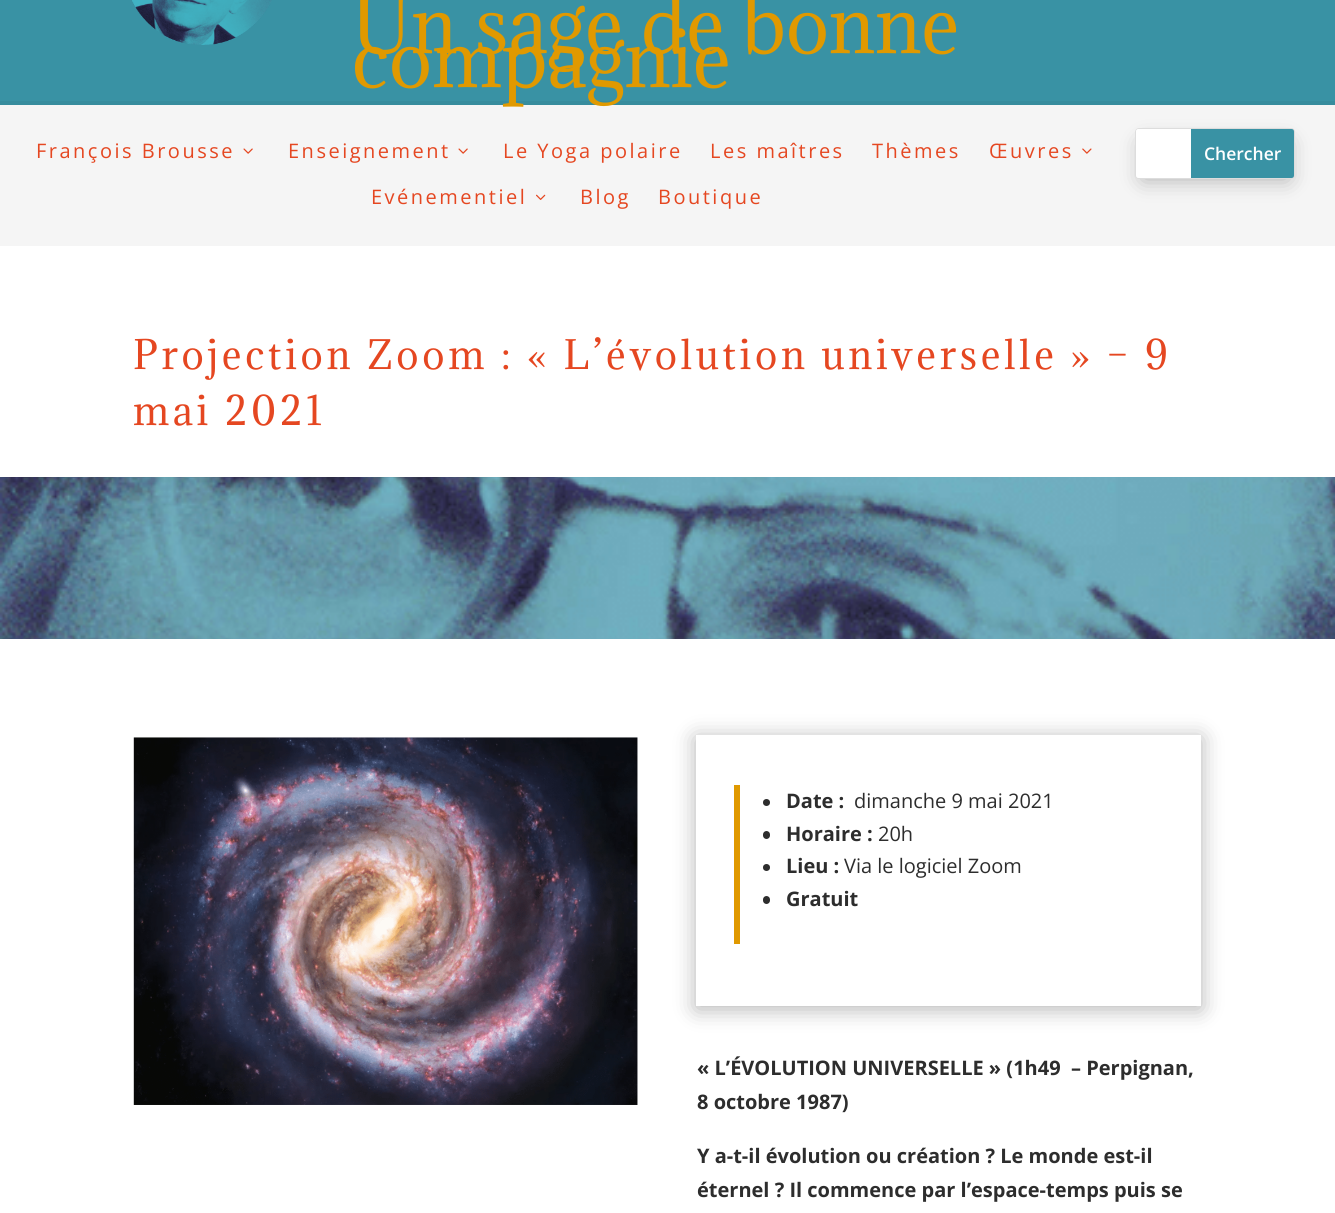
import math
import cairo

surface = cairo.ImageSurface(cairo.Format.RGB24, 1335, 1213)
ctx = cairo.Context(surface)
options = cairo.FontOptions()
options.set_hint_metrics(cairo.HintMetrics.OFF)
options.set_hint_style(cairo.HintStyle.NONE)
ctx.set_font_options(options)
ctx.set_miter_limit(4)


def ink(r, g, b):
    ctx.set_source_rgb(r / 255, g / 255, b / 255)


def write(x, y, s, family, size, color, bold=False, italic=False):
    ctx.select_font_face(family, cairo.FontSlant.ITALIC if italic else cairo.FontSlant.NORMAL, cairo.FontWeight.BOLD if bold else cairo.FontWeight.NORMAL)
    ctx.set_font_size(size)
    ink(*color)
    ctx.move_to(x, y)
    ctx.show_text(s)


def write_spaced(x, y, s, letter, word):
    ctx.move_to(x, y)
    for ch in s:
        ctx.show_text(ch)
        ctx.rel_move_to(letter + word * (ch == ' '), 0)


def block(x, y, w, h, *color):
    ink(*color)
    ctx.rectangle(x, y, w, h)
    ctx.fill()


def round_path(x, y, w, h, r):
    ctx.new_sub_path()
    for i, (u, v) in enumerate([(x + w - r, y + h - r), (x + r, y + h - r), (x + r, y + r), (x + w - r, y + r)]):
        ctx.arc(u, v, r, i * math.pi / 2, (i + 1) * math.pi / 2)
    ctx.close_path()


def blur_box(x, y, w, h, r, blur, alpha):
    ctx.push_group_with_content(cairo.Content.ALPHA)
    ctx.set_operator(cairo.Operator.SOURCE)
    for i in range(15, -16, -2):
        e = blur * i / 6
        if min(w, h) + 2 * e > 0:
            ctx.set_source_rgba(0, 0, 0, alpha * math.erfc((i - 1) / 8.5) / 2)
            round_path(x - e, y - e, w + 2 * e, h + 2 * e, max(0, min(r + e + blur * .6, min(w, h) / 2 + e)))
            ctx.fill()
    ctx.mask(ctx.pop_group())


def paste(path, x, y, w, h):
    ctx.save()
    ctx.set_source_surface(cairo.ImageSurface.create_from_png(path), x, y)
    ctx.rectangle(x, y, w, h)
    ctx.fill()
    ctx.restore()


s1 = dict(family="Adamina", size=72.5, color=(224, 153, 0))
s2 = dict(family="Open Sans SemiBold", size=17.5, color=(255, 255, 255))
s3 = dict(family="Open Sans", size=20, color=(45, 45, 45), bold=True)
s4 = dict(family="Open Sans", size=20, color=(45, 45, 45))

ink(255, 255, 255)
ctx.paint()
block(0, 105, 1335, 141, 245, 245, 245)
block(0, 0, 1335, 101, 57, 146, 164)
block(0, 101, 1335, 4, 55, 140, 157)
paste("pic1.png", 132, 0, 140, 45)
write(352, 53, "Un sage de bonne", **s1)
write(352, 87, "compagnie", **s1)
ctx.select_font_face("Open Sans")
ctx.set_font_size(20)
ink(229, 71, 33)
write_spaced(36, 158, "François Brousse", 2.5, 0)
paste("pic2.png", 243, 148, 10, 6)
write_spaced(288, 158, "Enseignement", 2.5, 0)
paste("pic2.png", 458, 148, 10, 6)
write_spaced(503, 158, "Le Yoga polaire", 2.5, 0)
write_spaced(710, 158, "Les maîtres", 2.5, 0)
write_spaced(872, 158, "Thèmes", 2.5, 0)
write_spaced(989, 158, "Œuvres", 2.5, 0)
paste("pic3.png", 1082, 148, 10, 6)
write_spaced(371, 204, "Evénementiel", 2.5, 0)
paste("pic4.png", 536, 194, 10, 6)
write_spaced(580, 204, "Blog", 2.5, 0)
write_spaced(658, 204, "Boutique", 2.5, 0)
ink(0, 0, 0)
blur_box(1143, 143, 145, 36, 0, 11, 0.3)
round_path(1135.5, 128.5, 159, 50, 3.5)
ink(221, 221, 221)
ctx.set_line_width(1)
ctx.stroke()
ink(255, 255, 255)
ctx.new_path()
ctx.move_to(1138.5, 129)
ctx.line_to(1191, 129)
ctx.line_to(1191, 178)
ctx.line_to(1138.5, 178)
ctx.curve_to(1137, 178, 1136, 177, 1136, 175.5)
ctx.line_to(1136, 131.5)
ctx.curve_to(1136, 130, 1137, 129, 1138.5, 129)
ctx.close_path()
ctx.fill()
ink(57, 146, 164)
ctx.new_path()
ctx.move_to(1191, 129)
ctx.line_to(1291.5, 129)
ctx.curve_to(1293, 129, 1294, 130, 1294, 131.5)
ctx.line_to(1294, 175.5)
ctx.curve_to(1294, 177, 1293, 178, 1291.5, 178)
ctx.line_to(1191, 178)
ctx.close_path()
ctx.fill()
write(1204, 160, "Chercher", **s2)
ctx.select_font_face("Adamina")
ctx.set_font_size(37.5)
ink(229, 71, 33)
write_spaced(133, 369, "Projection Zoom : « L’évolution universelle » – 9", 3.75, 0)
write_spaced(133, 425, "mai 2021", 3.75, 0)
paste("pic5.png", 0, 477, 1335, 162)
paste("pic6.png", 133, 737, 505, 368)
ctx.save()
ctx.set_fill_rule(cairo.FillRule.EVEN_ODD)
ctx.new_path()
ctx.move_to(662, 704)
ctx.line_to(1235, 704)
ctx.line_to(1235, 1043)
ctx.line_to(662, 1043)
ctx.close_path()
ctx.move_to(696, 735)
ctx.line_to(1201, 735)
ctx.line_to(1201, 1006)
ctx.line_to(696, 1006)
ctx.close_path()
ctx.clip()
ink(0, 0, 0)
blur_box(696, 738, 505, 271, 0, 11, 0.3)
ctx.restore()
block(734, 785, 6, 159, 224, 153, 0)
ink(45, 45, 45)
ctx.arc(766.5, 802.5, 3.5, 0, 2 * math.pi)
ctx.fill()
write(786, 808, "Date :", **s3)
write(854, 808, "dimanche 9 mai 2021", **s4)
round_path(763, 831, 7, 8, 3.5)
ctx.fill()
write(786, 841, "Horaire :", **s3)
write(878, 841, "20h", **s4)
ctx.new_path()
ctx.arc(766.5, 867.5, 3.5, 0, 2 * math.pi)
ctx.fill()
write(786, 873, "Lieu :", **s3)
write(844, 873, "Via le logiciel Zoom", **s4)
round_path(763, 896, 7, 8, 3.5)
ctx.fill()
write(786, 906, "Gratuit", **s3)
write(697, 1075, "« L’ÉVOLUTION UNIVERSELLE » (1h49  – Perpignan,", **s3)
write(697, 1109, "8 octobre 1987)", **s3)
write(697, 1163, "Y a-t-il évolution ou création ? Le monde est-il", **s3)
write(697, 1197, "éternel ? Il commence par l’espace-temps puis se", **s3)
surface.write_to_png("screenshot.png")
